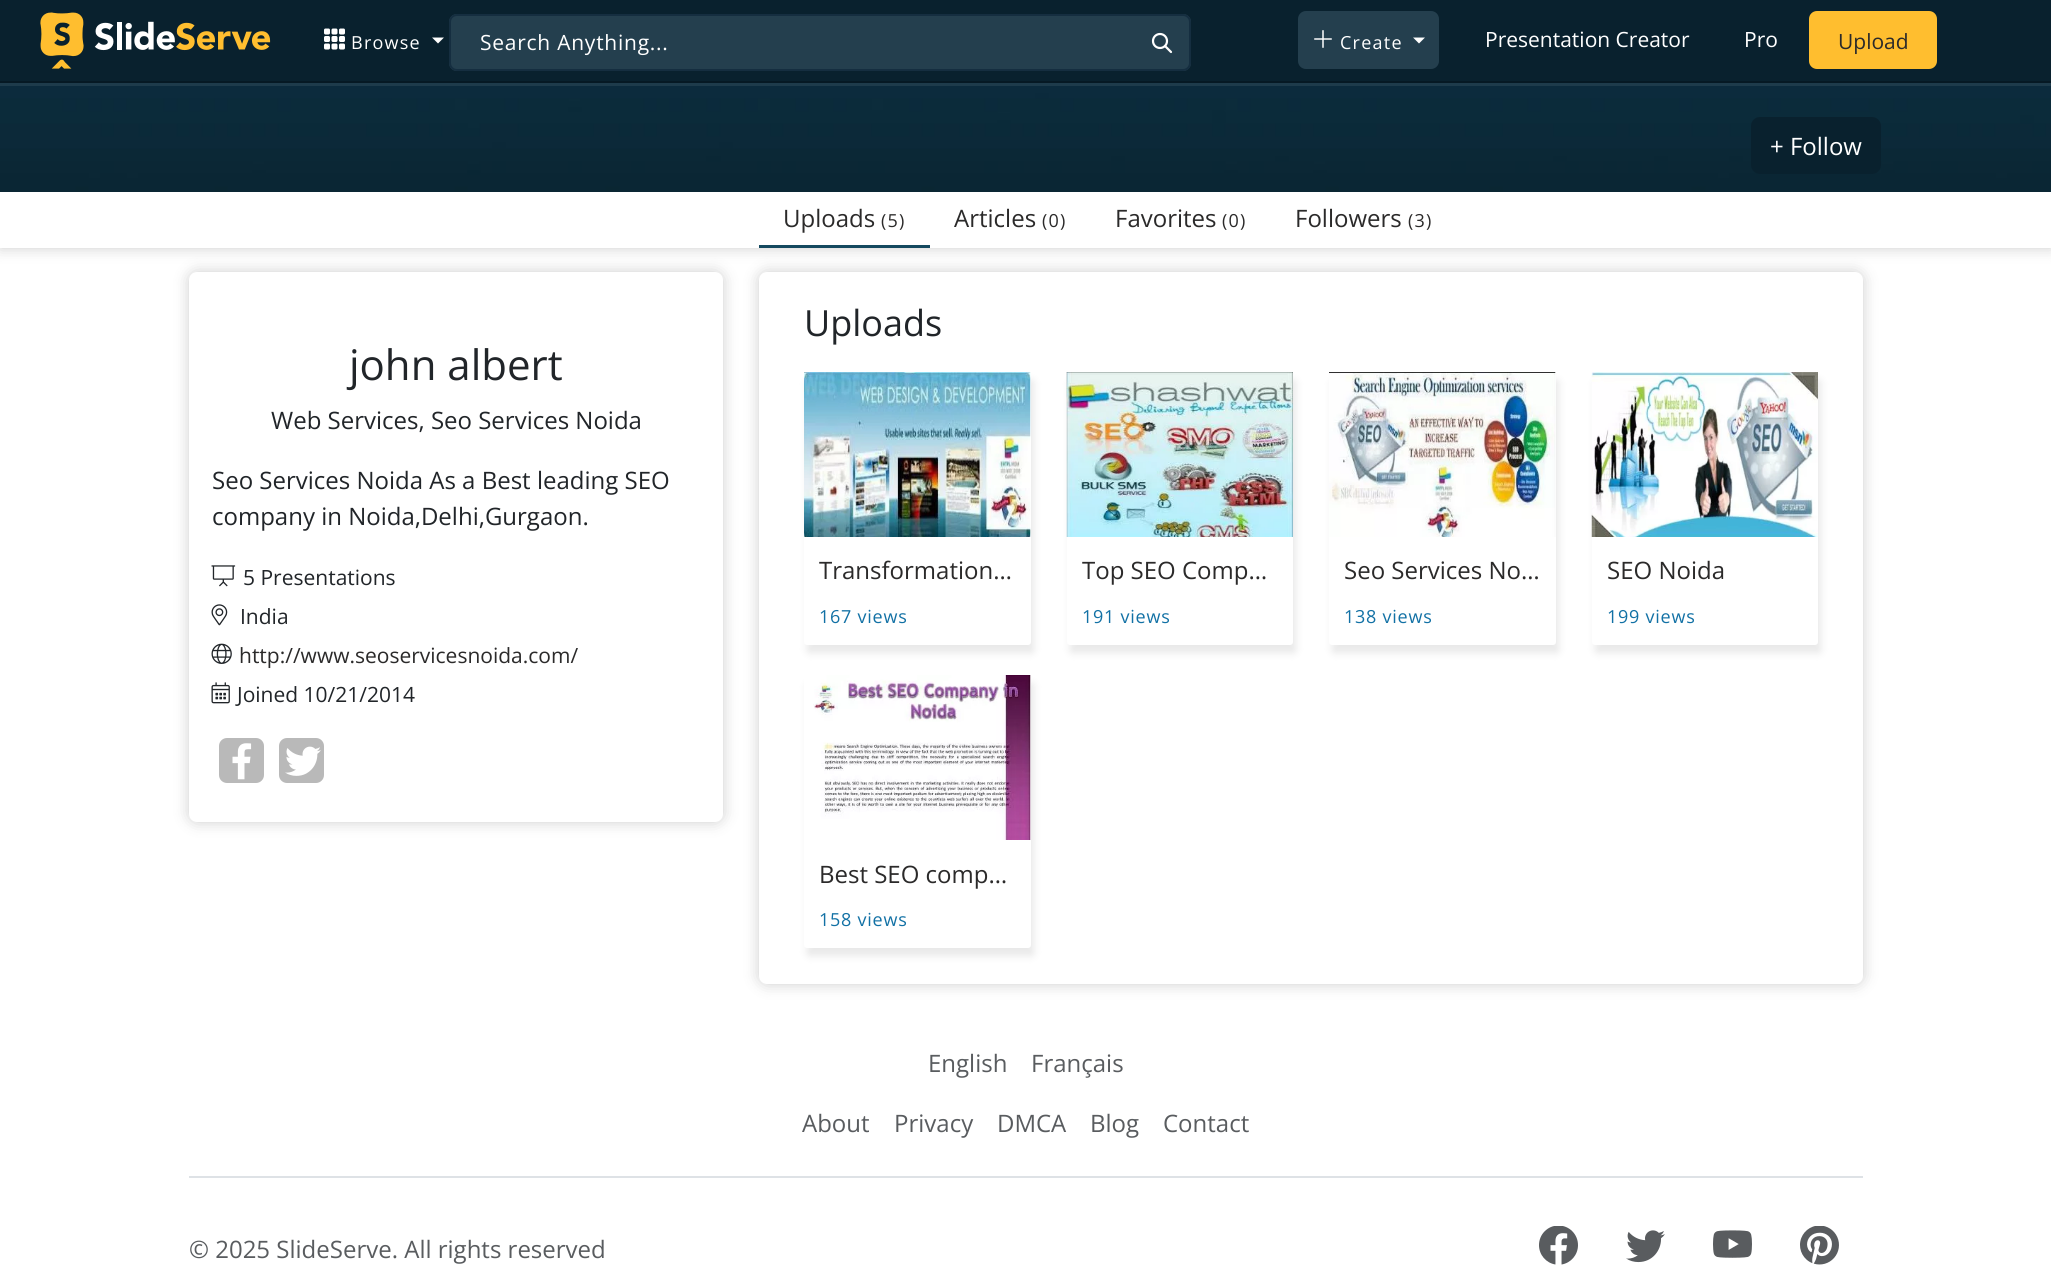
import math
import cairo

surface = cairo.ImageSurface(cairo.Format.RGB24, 2051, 1269)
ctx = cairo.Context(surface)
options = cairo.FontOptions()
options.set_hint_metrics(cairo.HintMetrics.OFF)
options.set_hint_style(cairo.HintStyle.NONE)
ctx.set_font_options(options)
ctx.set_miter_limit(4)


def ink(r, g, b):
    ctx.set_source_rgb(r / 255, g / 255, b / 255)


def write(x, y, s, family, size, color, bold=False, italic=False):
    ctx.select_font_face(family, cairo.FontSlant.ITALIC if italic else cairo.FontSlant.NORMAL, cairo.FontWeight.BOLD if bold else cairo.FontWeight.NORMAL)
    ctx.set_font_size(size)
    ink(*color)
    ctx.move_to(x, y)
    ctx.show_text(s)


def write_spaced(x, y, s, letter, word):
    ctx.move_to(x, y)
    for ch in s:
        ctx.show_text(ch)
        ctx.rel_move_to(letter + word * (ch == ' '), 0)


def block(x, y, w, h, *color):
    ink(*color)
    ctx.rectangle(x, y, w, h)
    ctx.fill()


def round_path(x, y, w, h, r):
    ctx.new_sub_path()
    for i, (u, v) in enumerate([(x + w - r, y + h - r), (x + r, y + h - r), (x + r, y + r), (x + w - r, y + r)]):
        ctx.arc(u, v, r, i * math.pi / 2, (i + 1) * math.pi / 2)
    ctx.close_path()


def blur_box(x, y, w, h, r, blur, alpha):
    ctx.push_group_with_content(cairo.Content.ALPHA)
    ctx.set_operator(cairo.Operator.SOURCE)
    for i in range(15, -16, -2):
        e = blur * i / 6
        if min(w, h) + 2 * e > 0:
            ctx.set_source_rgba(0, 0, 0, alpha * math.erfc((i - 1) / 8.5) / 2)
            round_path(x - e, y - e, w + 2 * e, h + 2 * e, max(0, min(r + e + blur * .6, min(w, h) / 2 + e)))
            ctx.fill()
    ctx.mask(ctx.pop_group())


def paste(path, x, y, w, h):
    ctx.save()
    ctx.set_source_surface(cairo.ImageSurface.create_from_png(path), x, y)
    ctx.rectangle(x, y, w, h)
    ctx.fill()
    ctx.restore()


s1 = dict(family="Open Sans", size=21, color=(255, 255, 255))
s2 = dict(family="Open Sans", size=21, color=(43, 42, 42))
s3 = dict(family="Open Sans", size=24, color=(255, 255, 255))
s4 = dict(family="Open Sans", size=24, color=(43, 42, 42))
s5 = dict(family="Open Sans", size=42, color=(33, 37, 41))
s6 = dict(family="Open Sans", size=24, color=(33, 37, 41))
s7 = dict(family="Open Sans", size=21, color=(33, 37, 41))
s8 = dict(family="Open Sans", size=36, color=(33, 37, 41))
s9 = dict(family="Open Sans", size=24, color=(89, 92, 95))

ink(255, 255, 255)
ctx.paint()
block(0, 83, 2051, 3, 30, 59, 75)
block(0, 0, 2051, 81, 9, 33, 46)
block(0, 81, 2051, 2, 6, 25, 36)
paste("pic1.png", 40, 12, 231, 57)
paste("pic2.png", 324, 28, 21, 22)
ctx.select_font_face("Open Sans")
ctx.set_font_size(18)
ink(255, 255, 255)
write_spaced(351, 49, "Browse", 1.25, 0)
ctx.new_path()
ctx.move_to(432, 37.5)
ctx.line_to(444, 37.5)
ctx.line_to(438, 43.5)
ctx.close_path()
ctx.fill()
ink(36, 63, 78)
round_path(1299, 12, 139, 56, 7)
ctx.fill_preserve()
ctx.stroke()
paste("pic3.png", 1314, 30, 18, 18)
ink(255, 255, 255)
write_spaced(1340, 49, "Create", 1.25, 0)
ctx.new_path()
ctx.move_to(1413, 37.5)
ctx.line_to(1425, 37.5)
ctx.line_to(1419, 43.5)
ctx.close_path()
ctx.fill()
write(1485, 47, "Presentation Creator", **s1)
write(1744, 47, "Pro", **s1)
ink(255, 190, 47)
round_path(1810, 12, 126, 56, 7)
ctx.fill_preserve()
ctx.stroke()
write(1838, 49, "Upload", **s2)
ink(36, 63, 78)
round_path(449, 14, 742, 57, 8)
ctx.fill()
ctx.arc(1160, 41, 7, 0, 2 * math.pi)
ink(255, 255, 255)
ctx.set_line_width(2.2)
ctx.stroke()
ctx.new_path()
ctx.move_to(1171, 52)
ctx.line_to(1165, 46)
ctx.set_line_cap(cairo.LineCap.ROUND)
ctx.set_line_join(cairo.LineJoin.ROUND)
ctx.stroke()
round_path(450, 15, 740, 55, 7)
ink(21, 46, 64)
ctx.set_line_width(2)
ctx.set_line_cap(cairo.LineCap.BUTT)
ctx.set_line_join(cairo.LineJoin.MITER)
ctx.stroke()
ink(255, 255, 255)
write_spaced(480, 50, "Search Anything...", 0.75, 0)
ink(0, 0, 0)
blur_box(0, 192, 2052, 56, 0, 7.5, 0.2)
paste("pic4.png", 0, 86, 2051, 106)
block(0, 192, 2051, 56, 255, 255, 255)
ink(9, 33, 46)
round_path(1752, 118, 128, 55, 8)
ctx.fill_preserve()
ctx.stroke()
write(1770, 155, "+ Follow", **s3)
block(759, 245, 171, 3, 21, 73, 95)
write(783, 227, "Uploads", **s4)
ctx.set_font_size(18)
write_spaced(881, 227, "(5)", 1.25, 0)
write(954, 227, "Articles", **s4)
ctx.set_font_size(18)
write_spaced(1042, 227, "(0)", 1.25, 0)
write(1115, 227, "Favorites", **s4)
ctx.set_font_size(18)
write_spaced(1222, 227, "(0)", 1.25, 0)
write(1295, 227, "Followers", **s4)
ctx.set_font_size(18)
write_spaced(1408, 227, "(3)", 1.25, 0)
ink(0, 0, 0)
blur_box(189, 272, 534, 550, 8, 7.5, 0.2)
ink(255, 255, 255)
round_path(189, 272, 534, 550, 8)
ctx.fill()
write(349, 380, "john albert", **s5)
write(271, 429, "Web Services, Seo Services Noida", **s6)
write(212, 489, "Seo Services Noida As a Best leading SEO", **s6)
write(212, 525, "company in Noida,Delhi,Gurgaon.", **s6)
paste("pic5.png", 211, 565, 25, 22)
write(243, 585, "5 Presentations", **s7)
paste("pic6.png", 211, 604, 17, 22)
write(240, 624, "India", **s7)
paste("pic7.png", 211, 643, 21, 21)
write(239, 663, "http://www.seoservicesnoida.com/", **s2)
paste("pic8.png", 211, 682, 19, 22)
write(237, 702, "Joined 10/21/2014", **s7)
ink(185, 185, 185)
round_path(219, 738, 45, 45, 8)
ctx.fill()
paste("pic9.png", 232, 743, 20, 37)
round_path(279, 738, 45, 45, 8)
ctx.fill()
paste("pic10.png", 285, 746, 36, 30)
ink(0, 0, 0)
blur_box(759, 272, 1104, 712, 8, 7.5, 0.2)
ink(255, 255, 255)
round_path(759, 272, 1104, 712, 8)
ctx.fill()
write(804, 336, "Uploads", **s8)
ink(199, 199, 199)
blur_box(807, 380, 227, 273, 3, 4, 0.4)
ink(255, 255, 255)
round_path(804, 372, 227, 273, 3)
ctx.fill()
paste("pic11.png", 804, 372, 227, 165)
write(819, 579, "Transformation…", **s4)
ctx.set_font_size(18)
ink(18, 113, 165)
write_spaced(819, 623, "167 views", 0.75, 0)
ink(199, 199, 199)
blur_box(1070, 380, 226, 273, 3, 4, 0.4)
ink(255, 255, 255)
round_path(1067, 372, 226, 273, 3)
ctx.fill()
paste("pic12.png", 1066, 372, 227, 165)
write(1082, 579, "Top SEO Comp…", **s4)
ctx.set_font_size(18)
ink(18, 113, 165)
write_spaced(1082, 623, "191 views", 0.75, 0)
ink(199, 199, 199)
blur_box(1332, 380, 227, 273, 3, 4, 0.4)
ink(255, 255, 255)
round_path(1329, 372, 227, 273, 3)
ctx.fill()
paste("pic13.png", 1329, 372, 227, 165)
write(1344, 579, "Seo Services No…", **s4)
ctx.set_font_size(18)
ink(18, 113, 165)
write_spaced(1344, 623, "138 views", 0.75, 0)
ink(199, 199, 199)
blur_box(1595, 380, 226, 273, 3, 4, 0.4)
ink(255, 255, 255)
round_path(1592, 372, 226, 273, 3)
ctx.fill()
paste("pic14.png", 1591, 372, 227, 165)
write(1607, 579, "SEO Noida", **s4)
ctx.set_font_size(18)
ink(18, 113, 165)
write_spaced(1607, 623, "199 views", 0.75, 0)
ink(199, 199, 199)
blur_box(807, 683, 227, 273, 3, 4, 0.4)
ink(255, 255, 255)
round_path(804, 675, 227, 273, 3)
ctx.fill()
paste("pic15.png", 813, 675, 218, 165)
write(819, 883, "Best SEO comp…", **s4)
ctx.set_font_size(18)
ink(18, 113, 165)
write_spaced(819, 926, "158 views", 0.75, 0)
write(928, 1072, "English", **s9)
write(1031, 1072, "Français", **s9)
block(189, 1176, 1674, 2, 222, 226, 230)
write(802, 1132, "About", **s9)
write(894, 1132, "Privacy", **s9)
write(997, 1132, "DMCA", **s9)
write(1090, 1132, "Blog", **s9)
write(1163, 1132, "Contact", **s9)
write(189, 1258, "© 2025 SlideServe. All rights reserved", **s9)
paste("pic16.png", 1539, 1226, 39, 39)
paste("pic17.png", 1626, 1230, 39, 33)
paste("pic18.png", 1713, 1230, 39, 28)
paste("pic19.png", 1800, 1226, 39, 39)
surface.write_to_png("screenshot.png")
